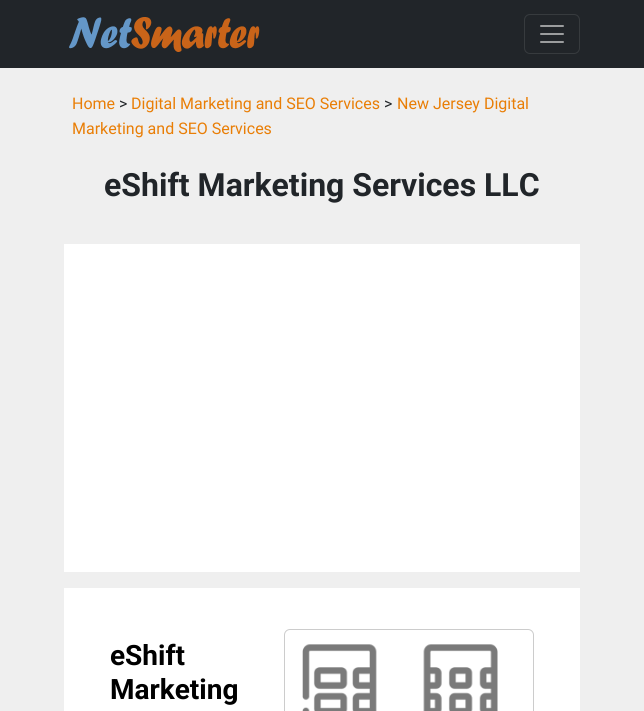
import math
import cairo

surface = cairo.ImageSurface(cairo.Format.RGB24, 644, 711)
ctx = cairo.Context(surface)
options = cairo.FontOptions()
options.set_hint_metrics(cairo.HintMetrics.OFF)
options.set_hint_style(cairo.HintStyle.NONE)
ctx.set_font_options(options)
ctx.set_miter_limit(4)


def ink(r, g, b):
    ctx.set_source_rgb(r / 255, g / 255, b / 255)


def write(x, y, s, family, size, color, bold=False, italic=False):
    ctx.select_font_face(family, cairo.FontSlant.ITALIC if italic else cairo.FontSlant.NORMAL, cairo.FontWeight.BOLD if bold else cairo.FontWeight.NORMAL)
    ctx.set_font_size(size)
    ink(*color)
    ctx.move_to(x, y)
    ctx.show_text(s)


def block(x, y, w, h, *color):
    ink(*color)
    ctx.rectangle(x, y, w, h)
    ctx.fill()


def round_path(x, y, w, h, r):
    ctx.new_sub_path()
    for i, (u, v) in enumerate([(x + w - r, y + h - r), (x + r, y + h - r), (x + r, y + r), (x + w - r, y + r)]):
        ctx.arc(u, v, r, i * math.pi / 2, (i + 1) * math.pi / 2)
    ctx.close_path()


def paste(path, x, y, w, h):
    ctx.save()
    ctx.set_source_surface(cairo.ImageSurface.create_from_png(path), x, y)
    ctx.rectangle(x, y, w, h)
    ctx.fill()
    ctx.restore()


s1 = dict(family="Roboto", size=16, color=(233, 126, 6))
s2 = dict(family="Roboto", size=16, color=(33, 37, 41))
s3 = dict(family="Roboto", size=32, color=(33, 37, 41), bold=True)
s4 = dict(family="Roboto", size=28, color=(0, 0, 0), bold=True)

ink(239, 239, 239)
ctx.paint()
block(0, 0, 644, 68, 33, 37, 41)
paste("pic1.png", 69, 17, 191, 35)
round_path(524.5, 14.5, 55, 39, 5.5)
ink(55, 59, 62)
ctx.set_line_width(1)
ctx.stroke()
paste("pic2.png", 540, 25, 24, 18)
write(72, 109, "Home", **s1)
write(119, 109, ">", **s2)
write(131, 109, "Digital Marketing and SEO Services", **s1)
write(384, 109, ">", **s2)
write(397, 109, "New Jersey Digital", **s1)
write(72, 134, "Marketing and SEO Services", **s1)
write(104, 196, "eShift Marketing Services LLC", **s3)
block(64, 244, 516, 328, 255, 255, 255)
block(64, 588, 516, 123, 255, 255, 255)
write(110, 665, "eShift", **s4)
write(110, 699, "Marketing", **s4)
round_path(284.5, 629.5, 249, 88, 5.5)
ink(204, 204, 204)
ctx.stroke()
paste("pic3.png", 302, 644, 196, 67)
surface.write_to_png("screenshot.png")
